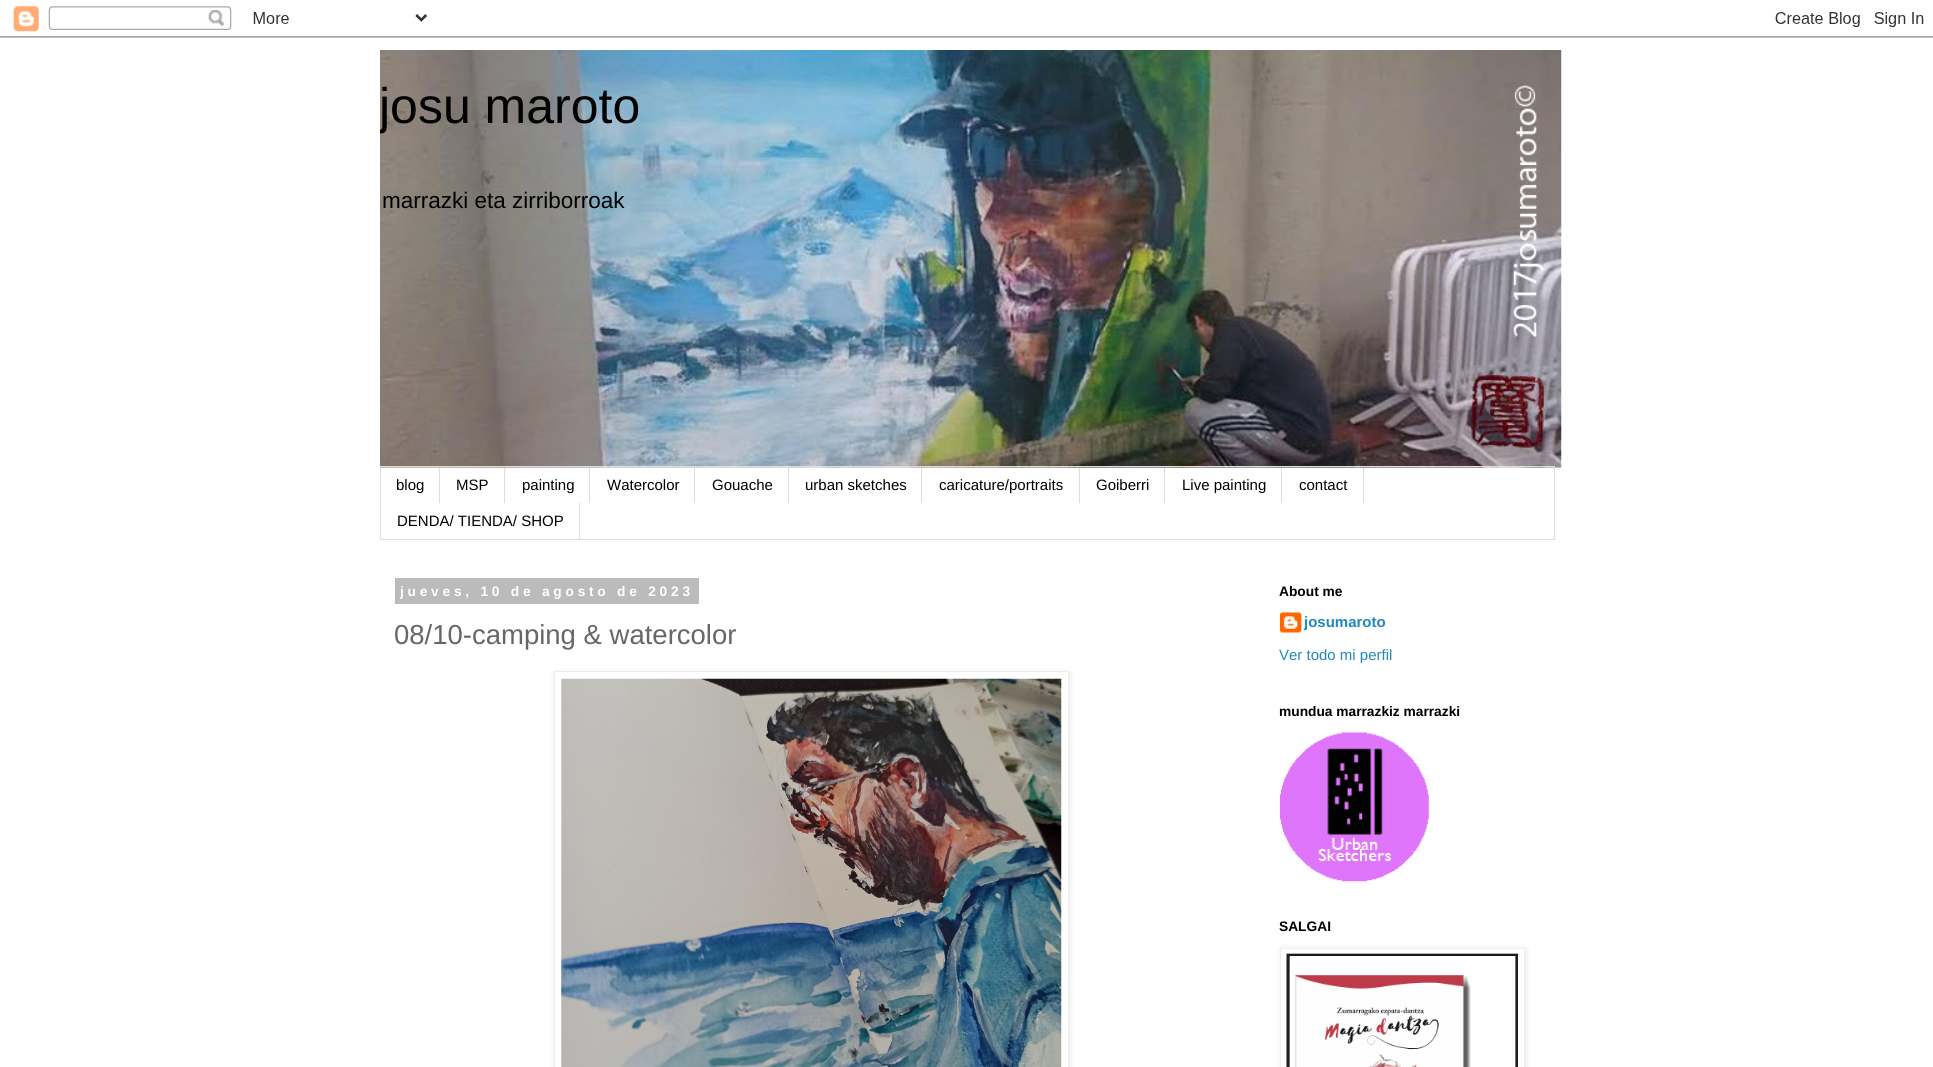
import math
import cairo

surface = cairo.ImageSurface(cairo.Format.RGB24, 1933, 1067)
ctx = cairo.Context(surface)
options = cairo.FontOptions()
options.set_hint_metrics(cairo.HintMetrics.OFF)
options.set_hint_style(cairo.HintStyle.NONE)
ctx.set_font_options(options)
ctx.set_miter_limit(4)


def ink(r, g, b):
    ctx.set_source_rgb(r / 255, g / 255, b / 255)


def write(x, y, s, family, size, color, bold=False, italic=False):
    ctx.select_font_face(family, cairo.FontSlant.ITALIC if italic else cairo.FontSlant.NORMAL, cairo.FontWeight.BOLD if bold else cairo.FontWeight.NORMAL)
    ctx.set_font_size(size)
    ink(*color)
    ctx.move_to(x, y)
    ctx.show_text(s)


def write_spaced(x, y, s, letter, word):
    ctx.move_to(x, y)
    for ch in s:
        ctx.show_text(ch)
        ctx.rel_move_to(letter + word * (ch == ' '), 0)


def block(x, y, w, h, *color):
    ink(*color)
    ctx.rectangle(x, y, w, h)
    ctx.fill()


def round_path(x, y, w, h, r):
    ctx.new_sub_path()
    for i, (u, v) in enumerate([(x + w - r, y + h - r), (x + r, y + h - r), (x + r, y + r), (x + w - r, y + r)]):
        ctx.arc(u, v, r, i * math.pi / 2, (i + 1) * math.pi / 2)
    ctx.close_path()


def blur_box(x, y, w, h, r, blur, alpha):
    ctx.push_group_with_content(cairo.Content.ALPHA)
    ctx.set_operator(cairo.Operator.SOURCE)
    for i in range(15, -16, -2):
        e = blur * i / 6
        if min(w, h) + 2 * e > 0:
            ctx.set_source_rgba(0, 0, 0, alpha * math.erfc((i - 1) / 8.5) / 2)
            round_path(x - e, y - e, w + 2 * e, h + 2 * e, max(0, min(r + e + blur * .6, min(w, h) / 2 + e)))
            ctx.fill()
    ctx.mask(ctx.pop_group())


def paste(path, x, y, w, h):
    ctx.save()
    ctx.set_source_surface(cairo.ImageSurface.create_from_png(path), x, y)
    ctx.rectangle(x, y, w, h)
    ctx.fill()
    ctx.restore()


s1 = dict(family="Liberation Sans", size=50, color=(0, 0, 0))
s2 = dict(family="Liberation Sans", size=22.5, color=(0, 0, 0))
s3 = dict(family="Liberation Sans", size=15, color=(0, 0, 0))
s4 = dict(family="Liberation Sans", size=27.5, color=(102, 102, 102))
s5 = dict(family="Liberation Sans", size=13.75, color=(0, 0, 0), bold=True)
s6 = dict(family="Liberation Sans", size=15, color=(34, 136, 187), bold=True)
s7 = dict(family="Liberation Sans", size=15, color=(34, 136, 187))

ink(255, 255, 255)
ctx.paint()
paste("pic1.png", 0, 6, 1933, 32)
paste("pic2.png", 380, 50, 1182, 418)
ctx.save()
ctx.rectangle(380, 50, 1181, 418)
ctx.clip()
write(379, 123, "josu maroto", **s1)
ctx.restore()
write(382, 208, "marrazki eta zirriborroak", **s2)
ctx.rectangle(380.5, 466.5, 1174, 73)
ink(221, 221, 221)
ctx.set_line_width(1)
ctx.stroke()
block(439, 468, 1, 35, 221, 221, 221)
write(396, 490, "blog", **s3)
block(504, 468, 1, 35, 221, 221, 221)
write(456, 490, "MSP", **s3)
block(589, 468, 1, 35, 221, 221, 221)
write(522, 490, "painting", **s3)
block(694, 468, 1, 35, 221, 221, 221)
write(607, 490, "Watercolor", **s3)
block(788, 468, 1, 35, 221, 221, 221)
write(712, 490, "Gouache", **s3)
block(921, 468, 1, 35, 221, 221, 221)
write(805, 490, "urban sketches", **s3)
block(1079, 468, 1, 35, 221, 221, 221)
write(939, 490, "caricature/portraits", **s3)
block(1164, 468, 1, 35, 221, 221, 221)
write(1096, 490, "Goiberri", **s3)
block(1281, 468, 1, 35, 221, 221, 221)
write(1182, 490, "Live painting", **s3)
block(1363, 468, 1, 35, 221, 221, 221)
write(1299, 490, "contact", **s3)
block(579, 503, 1, 36, 221, 221, 221)
write(397, 526, "DENDA/ TIENDA/ SHOP", **s3)
block(395, 578, 304, 26, 187, 187, 187)
ctx.select_font_face("Liberation Sans", cairo.FontSlant.NORMAL, cairo.FontWeight.BOLD)
ctx.set_font_size(13.75)
ink(255, 255, 255)
write_spaced(400, 596, "jueves, 10 de agosto de 2023", 3.75, 0)
write(394, 644, "08/10-camping & watercolor", **s4)
ink(0, 0, 0)
blur_box(555, 673, 515, 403, 0, 3, 0.1)
ink(255, 255, 255)
ctx.rectangle(554.5, 671.5, 514, 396)
ctx.fill_preserve()
ink(238, 238, 238)
ctx.stroke()
paste("pic3.png", 561, 678, 501, 389)
write(1279, 596, "About me", **s5)
paste("pic4.png", 1280, 612, 22, 21)
write(1304, 627, "josumaroto", **s6)
write(1279, 660, "Ver todo mi perfil", **s7)
write(1279, 716, "mundua marrazkiz marrazki", **s5)
paste("pic5.png", 1280, 732, 149, 150)
write(1279, 931, "SALGAI", **s5)
ctx.save()
ctx.set_fill_rule(cairo.FillRule.EVEN_ODD)
ctx.new_path()
ctx.move_to(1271, 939)
ctx.line_to(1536, 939)
ctx.line_to(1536, 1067)
ctx.line_to(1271, 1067)
ctx.close_path()
ctx.move_to(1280, 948)
ctx.line_to(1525, 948)
ctx.line_to(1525, 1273)
ctx.line_to(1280, 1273)
ctx.close_path()
ctx.clip()
ink(0, 0, 0)
blur_box(1281, 949, 245, 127, 0, 3, 0.1)
ctx.restore()
ctx.rectangle(1280.5, 948.5, 244, 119)
ink(238, 238, 238)
ctx.stroke()
paste("pic6.png", 1286, 953, 232, 114)
surface.write_to_png("screenshot.png")
